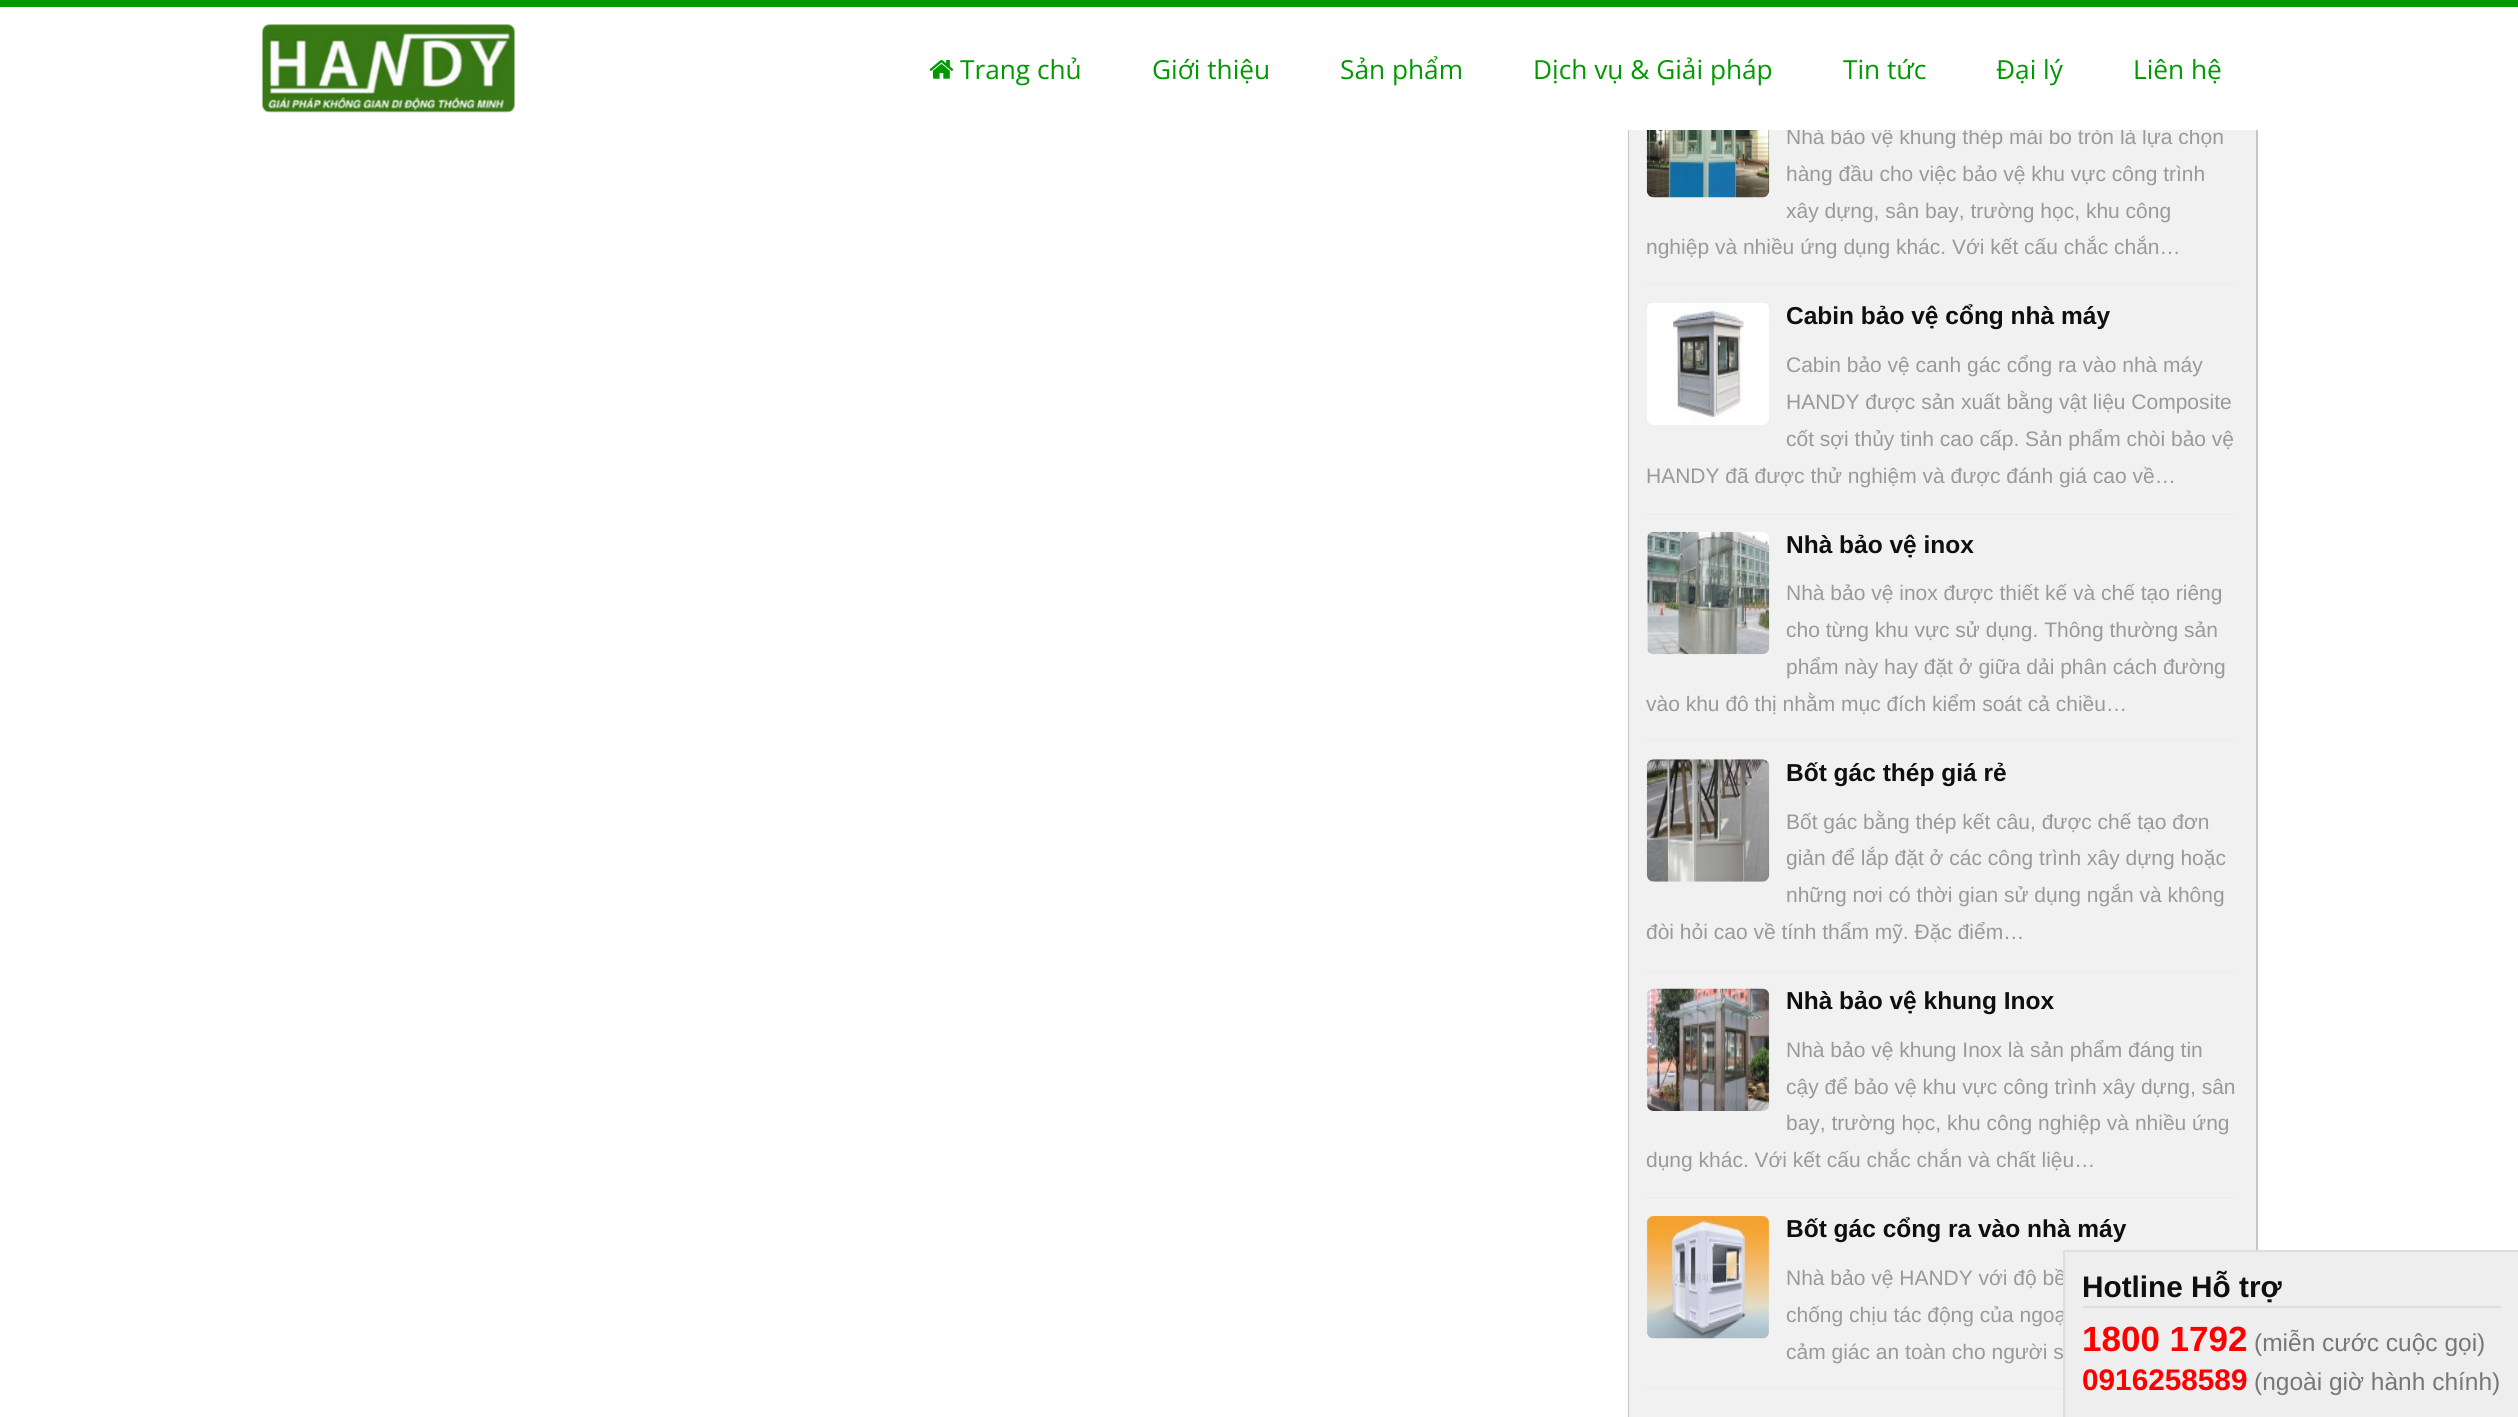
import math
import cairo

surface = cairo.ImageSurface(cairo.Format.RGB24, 2518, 1417)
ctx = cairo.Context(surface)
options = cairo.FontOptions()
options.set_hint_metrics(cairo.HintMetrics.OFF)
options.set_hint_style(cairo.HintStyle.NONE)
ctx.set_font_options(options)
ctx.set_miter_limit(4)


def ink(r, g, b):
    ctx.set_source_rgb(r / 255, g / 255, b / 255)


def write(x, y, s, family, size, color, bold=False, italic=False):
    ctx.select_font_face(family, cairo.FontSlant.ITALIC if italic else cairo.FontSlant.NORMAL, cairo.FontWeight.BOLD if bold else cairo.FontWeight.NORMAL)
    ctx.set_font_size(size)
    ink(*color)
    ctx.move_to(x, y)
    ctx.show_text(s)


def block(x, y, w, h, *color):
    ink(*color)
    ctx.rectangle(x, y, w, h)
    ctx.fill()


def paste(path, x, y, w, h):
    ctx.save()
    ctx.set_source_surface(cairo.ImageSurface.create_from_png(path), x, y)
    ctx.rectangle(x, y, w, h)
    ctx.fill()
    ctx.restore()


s1 = dict(family="Liberation Sans", size=21, color=(153, 153, 153))
s2 = dict(family="Open Sans", size=26.25, color=(0, 153, 0))
s3 = dict(family="Liberation Sans", size=24.5, color=(15, 15, 15), bold=True)
s4 = dict(family="Liberation Sans", size=29.75, color=(15, 15, 15), bold=True)
s5 = dict(family="Liberation Sans", size=35, color=(255, 0, 0), bold=True)
s6 = dict(family="Liberation Sans", size=24.5, color=(119, 119, 119))
s7 = dict(family="Liberation Sans", size=29.75, color=(255, 0, 0), bold=True)

ink(255, 255, 255)
ctx.paint()
block(1629, 130, 627, 1287, 241, 241, 241)
ink(198, 198, 198)
ctx.set_fill_rule(cairo.FillRule.EVEN_ODD)
ctx.new_path()
ctx.move_to(1628, -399)
ctx.line_to(2258, -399)
ctx.line_to(2258, 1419)
ctx.curve_to(2258, 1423, 2254, 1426, 2250, 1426)
ctx.line_to(1634, 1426)
ctx.curve_to(1631, 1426, 1628, 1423, 1628, 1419)
ctx.close_path()
ctx.move_to(1629, -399)
ctx.line_to(2256, -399)
ctx.line_to(2256, 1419)
ctx.curve_to(2256, 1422, 2253, 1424, 2250, 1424)
ctx.line_to(1634, 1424)
ctx.curve_to(1632, 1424, 1629, 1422, 1629, 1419)
ctx.close_path()
ctx.fill()
write(1786, 144, "Nhà bảo vệ khung thép mái bo tròn là lựa chọn", **s1)
block(1628, 7, 630, 123, 255, 255, 255)
block(0, 0, 2518, 7, 0, 153, 0)
paste("pic1.png", 262, 24, 253, 89)
paste("pic2.png", 929, 60, 25, 19)
write(960, 79, "Trang chủ", **s2)
write(1152, 79, "Giới thiệu", **s2)
write(1340, 79, "Sản phẩm", **s2)
write(1533, 79, "Dịch vụ & Giải pháp", **s2)
write(1843, 79, "Tin tức", **s2)
write(1996, 79, "Đại lý", **s2)
write(2133, 79, "Liên hệ", **s2)
block(1647, 284, 591, 2, 238, 238, 238)
write(1786, 181, "hàng đầu cho việc bảo vệ khu vực công trình", **s1)
write(1786, 218, "xây dựng, sân bay, trường học, khu công", **s1)
write(1646, 254, "nghiệp và nhiều ứng dụng khác. Với kết cấu chắc chắn…", **s1)
paste("pic3.png", 1646, 130, 124, 68)
block(1647, 513, 591, 2, 238, 238, 238)
paste("pic4.png", 1647, 303, 122, 122)
write(1786, 324, "Cabin bảo vệ cổng nhà máy", **s3)
write(1786, 372, "Cabin bảo vệ canh gác cổng ra vào nhà máy", **s1)
write(1786, 409, "HANDY được sản xuất bằng vật liệu Composite", **s1)
write(1786, 446, "cốt sợi thủy tinh cao cấp. Sản phẩm chòi bảo vệ", **s1)
write(1646, 483, "HANDY đã được thử nghiệm và được đánh giá cao về…", **s1)
block(1647, 740, 591, 2, 238, 238, 238)
paste("pic5.png", 1647, 531, 123, 124)
write(1786, 553, "Nhà bảo vệ inox", **s3)
write(1786, 600, "Nhà bảo vệ inox được thiết kế và chế tạo riêng", **s1)
write(1786, 637, "cho từng khu vực sử dụng. Thông thường sản", **s1)
write(1786, 674, "phẩm này hay đặt ở giữa dải phân cách đường", **s1)
write(1646, 711, "vào khu đô thị nhằm mục đích kiểm soát cả chiều…", **s1)
block(1647, 970, 591, 2, 238, 238, 238)
paste("pic6.png", 1646, 759, 124, 123)
write(1786, 781, "Bốt gác thép giá rẻ", **s3)
write(1786, 829, "Bốt gác bằng thép kết câu, được chế tạo đơn", **s1)
write(1786, 865, "giản để lắp đặt ở các công trình xây dựng hoặc", **s1)
write(1786, 902, "những nơi có thời gian sử dụng ngắn và không", **s1)
write(1646, 939, "đòi hỏi cao về tính thẩm mỹ. Đặc điểm…", **s1)
block(1647, 1197, 591, 2, 238, 238, 238)
paste("pic7.png", 1646, 988, 124, 123)
write(1786, 1009, "Nhà bảo vệ khung Inox", **s3)
write(1786, 1057, "Nhà bảo vệ khung Inox là sản phẩm đáng tin", **s1)
write(1786, 1094, "cậy để bảo vệ khu vực công trình xây dựng, sân", **s1)
write(1786, 1130, "bay, trường học, khu công nghiệp và nhiều ứng", **s1)
write(1646, 1167, "dụng khác. Với kết cấu chắc chắn và chất liệu…", **s1)
block(1647, 1388, 416, 2, 238, 238, 238)
paste("pic8.png", 1646, 1216, 124, 123)
write(1786, 1237, "Bốt gác cổng ra vào nhà máy", **s3)
write(1786, 1285, "Nhà bảo vệ HANDY với độ bề", **s1)
write(1786, 1322, "chống chịu tác động của ngoạ", **s1)
write(1786, 1359, "cảm giác an toàn cho người s", **s1)
block(2065, 1252, 453, 165, 238, 238, 238)
block(2063, 1250, 455, 2, 221, 221, 221)
block(2063, 1250, 2, 167, 221, 221, 221)
block(2083, 1306, 418, 2, 221, 221, 221)
write(2082, 1297, "Hotline Hỗ trợ", **s4)
write(2082, 1351, "1800 1792", **s5)
write(2254, 1351, "(miễn cước cuộc gọi)", **s6)
write(2082, 1390, "0916258589", **s7)
write(2254, 1390, "(ngoài giờ hành chính)", **s6)
surface.write_to_png("screenshot.png")
